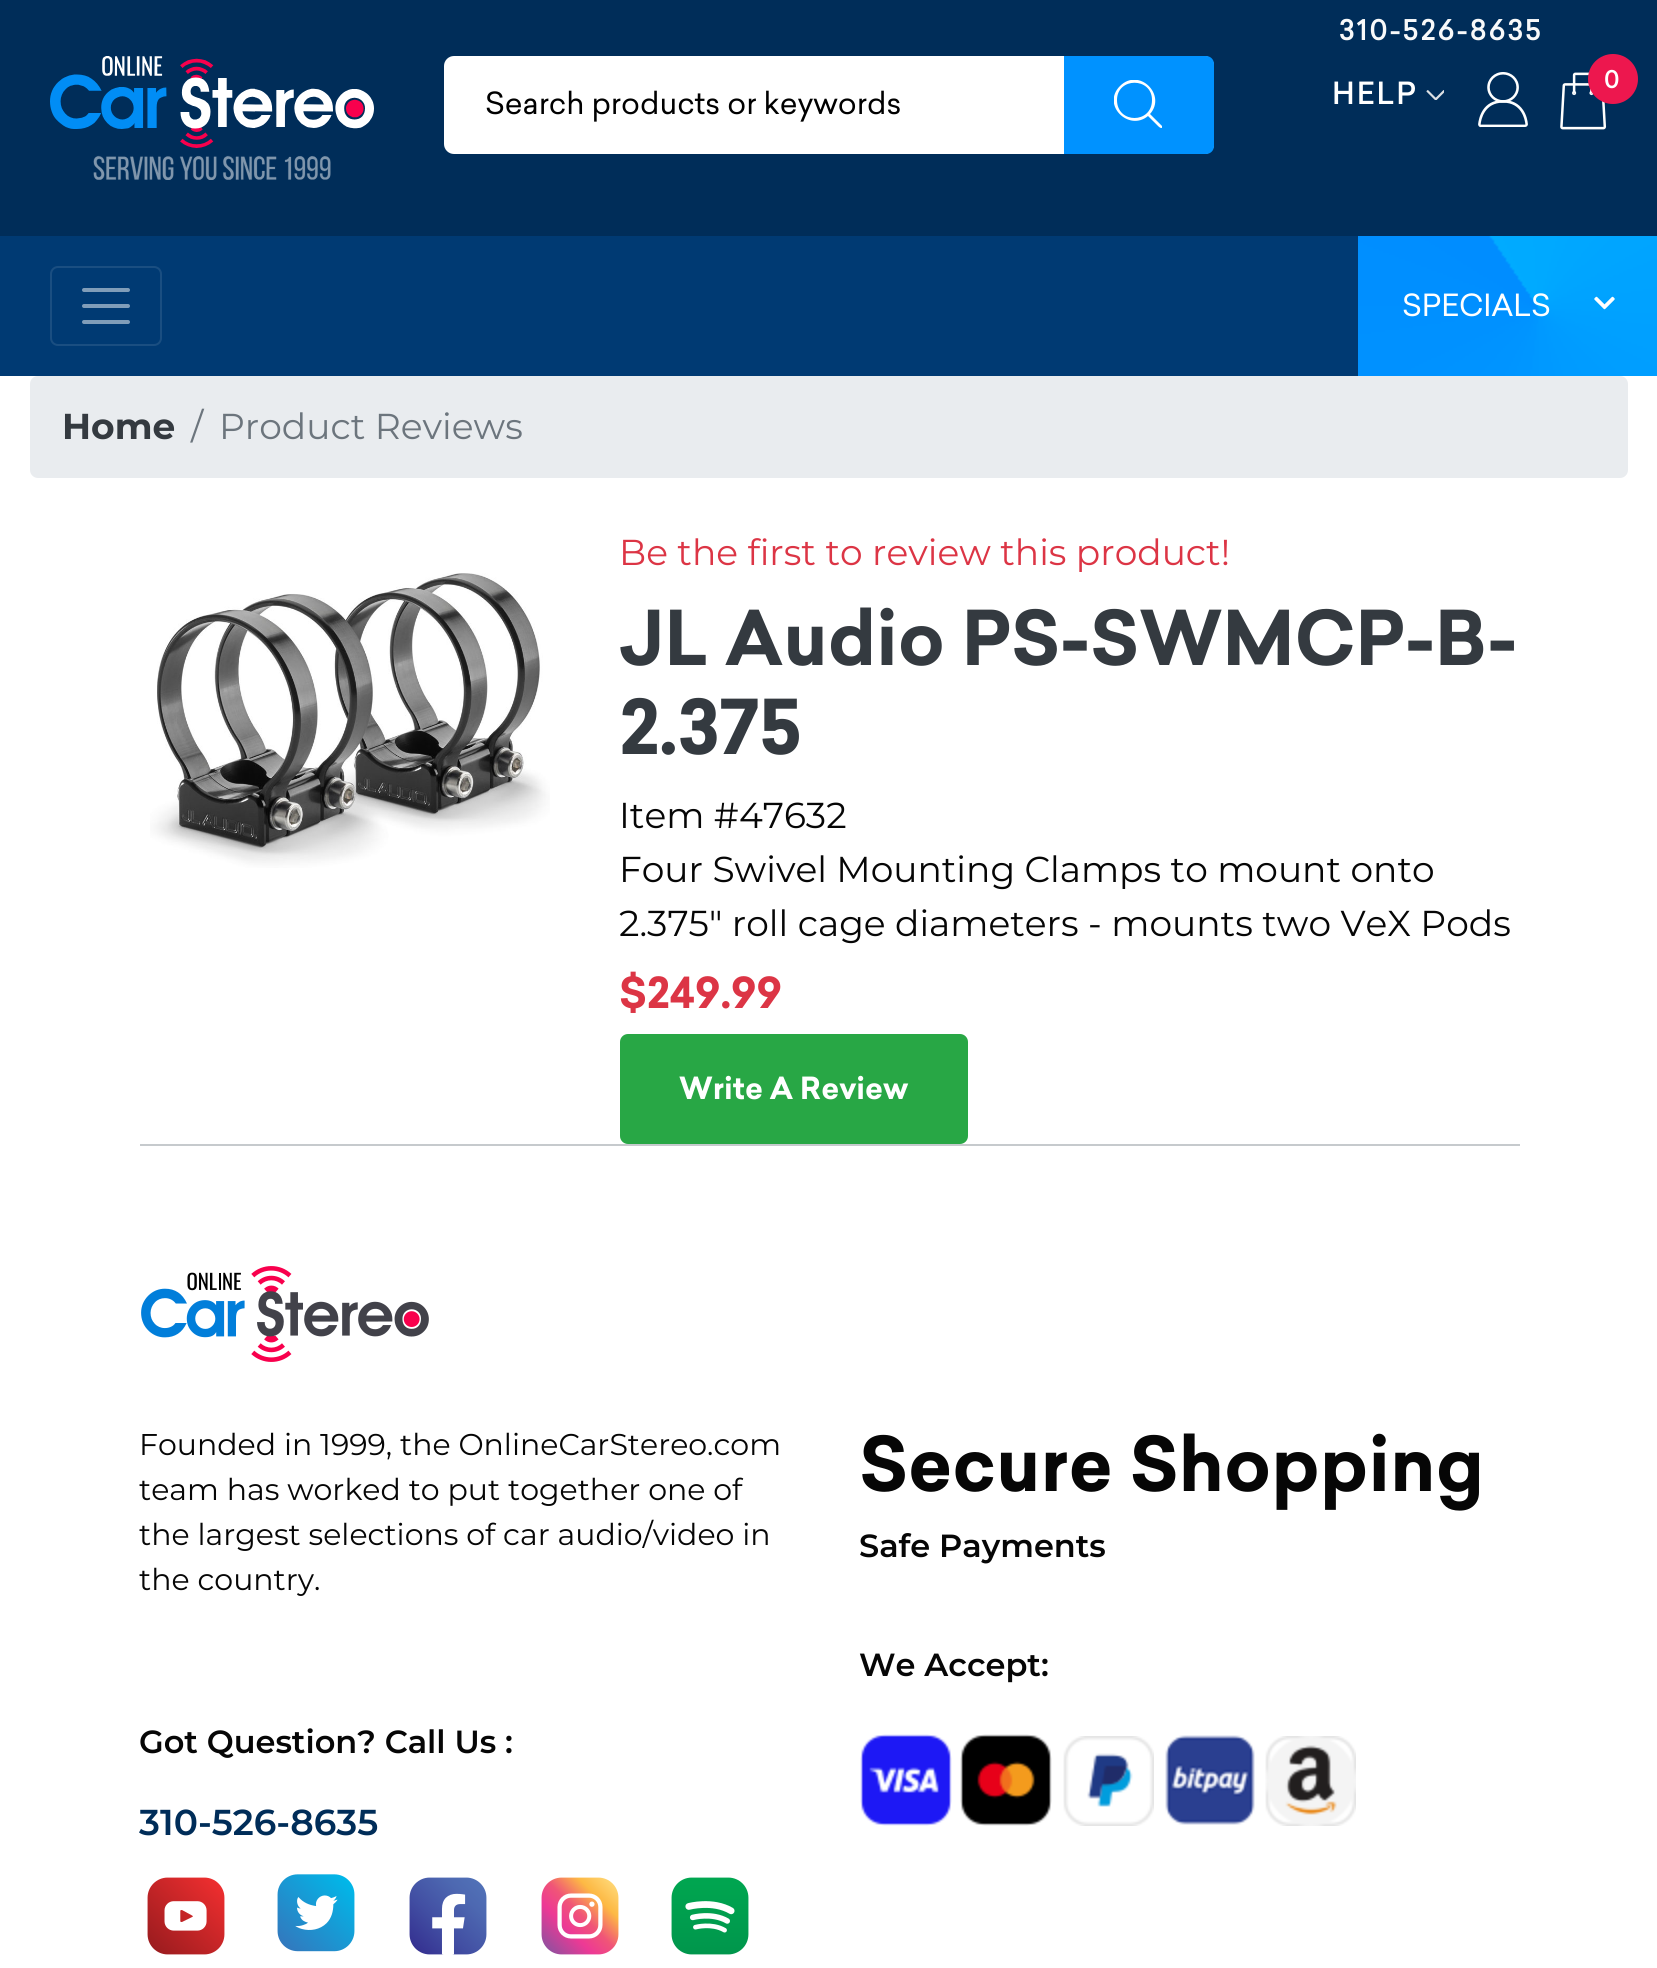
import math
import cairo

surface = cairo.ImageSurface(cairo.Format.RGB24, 1657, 1968)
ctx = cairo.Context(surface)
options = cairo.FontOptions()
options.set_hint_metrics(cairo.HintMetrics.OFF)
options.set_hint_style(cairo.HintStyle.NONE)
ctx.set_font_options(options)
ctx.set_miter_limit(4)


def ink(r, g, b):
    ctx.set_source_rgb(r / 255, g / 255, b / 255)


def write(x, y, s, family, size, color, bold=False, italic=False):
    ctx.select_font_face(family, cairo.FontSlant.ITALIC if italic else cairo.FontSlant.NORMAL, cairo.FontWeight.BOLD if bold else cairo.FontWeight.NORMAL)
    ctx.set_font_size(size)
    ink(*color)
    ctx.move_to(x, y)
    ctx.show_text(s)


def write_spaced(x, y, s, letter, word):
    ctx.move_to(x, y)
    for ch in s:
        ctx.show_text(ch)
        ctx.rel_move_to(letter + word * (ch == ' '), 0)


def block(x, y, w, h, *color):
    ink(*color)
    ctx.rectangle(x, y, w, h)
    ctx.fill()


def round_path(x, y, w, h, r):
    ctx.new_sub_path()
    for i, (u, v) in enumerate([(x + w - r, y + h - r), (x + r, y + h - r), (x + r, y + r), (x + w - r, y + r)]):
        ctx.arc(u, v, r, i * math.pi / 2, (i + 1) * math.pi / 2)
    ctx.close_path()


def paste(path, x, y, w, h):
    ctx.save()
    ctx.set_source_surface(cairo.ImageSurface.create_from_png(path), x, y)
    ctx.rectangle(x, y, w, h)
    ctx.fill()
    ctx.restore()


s1 = dict(family="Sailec", size=30, color=(0, 0, 0))
s2 = dict(family="Sailec", size=30, color=(255, 255, 255))
s3 = dict(family="Montserrat", size=36, color=(52, 58, 64), bold=True)
s4 = dict(family="Montserrat", size=36, color=(108, 117, 125))
s5 = dict(family="Montserrat", size=36, color=(220, 53, 69))
s6 = dict(family="Sailec", size=74, color=(52, 58, 64), bold=True)
s7 = dict(family="Montserrat", size=36, color=(6, 6, 6))
s8 = dict(family="Sailec", size=42, color=(220, 53, 69), bold=True)
s9 = dict(family="Sailec", size=30, color=(255, 255, 255), bold=True)
s10 = dict(family="Montserrat", size=30, color=(6, 6, 6))
s11 = dict(family="Montserrat SemiBold", size=32, color=(6, 6, 6))
s12 = dict(family="Montserrat SemiBold", size=36, color=(0, 45, 89))
s13 = dict(family="Sailec", size=74, color=(6, 6, 6), bold=True)

ink(0, 45, 89)
ctx.paint()
paste("pic1.png", 50, 56, 324, 124)
ink(255, 255, 255)
round_path(444, 56, 770, 98, 10)
ctx.fill()
write(485, 114, "Search products or keywords", **s1)
ink(0, 146, 255)
ctx.new_path()
ctx.move_to(1064, 56)
ctx.line_to(1206, 56)
ctx.curve_to(1210.5, 56, 1214, 59.5, 1214, 64)
ctx.line_to(1214, 146)
ctx.curve_to(1214, 150.5, 1210.5, 154, 1206, 154)
ctx.line_to(1064, 154)
ctx.close_path()
ctx.fill()
ctx.save()
ctx.rectangle(1114, 80, 48, 48)
ctx.clip()
ink(255, 255, 255)
ctx.new_path()
ctx.move_to(1162, 126)
ctx.line_to(1150, 114)
ctx.curve_to(1167, 95, 1139, 67, 1120, 86)
ctx.curve_to(1101, 105, 1129, 132, 1148, 116)
ctx.line_to(1158, 126)
ctx.curve_to(1162, 130, 1163, 127, 1162, 126)
ctx.close_path()
ctx.move_to(1117, 100)
ctx.curve_to(1117, 77, 1152, 77, 1152, 100)
ctx.curve_to(1152, 124, 1117, 124, 1117, 100)
ctx.close_path()
ctx.fill()
ctx.restore()
ctx.select_font_face("Sailec Medium")
ctx.set_font_size(28)
ink(248, 249, 250)
write_spaced(1339, 40, "310-526-8635", 2, 0)
paste("pic2.png", 1426, 90, 18, 10)
ctx.set_font_size(30)
ink(255, 255, 255)
write_spaced(1332, 104, "HELP", 2, 0)
paste("pic3.png", 1478, 72, 50, 56)
paste("pic4.png", 1560, 72, 47, 58)
ink(237, 23, 78)
ctx.arc(1613, 79, 25, 0, 2 * math.pi)
ctx.fill()
ctx.set_font_size(24)
ink(255, 255, 255)
write_spaced(1604, 88, "0", 2, 0)
block(0, 236, 1358, 140, 0, 58, 115)
round_path(51, 267, 110, 78, 7)
ink(26, 78, 129)
ctx.stroke()
ctx.new_path()
ctx.move_to(84, 290)
ctx.line_to(128, 290)
ctx.move_to(84, 306)
ctx.line_to(128, 306)
ctx.move_to(84, 322)
ctx.line_to(128, 322)
ink(128, 157, 185)
ctx.set_line_width(4)
ctx.set_line_cap(cairo.LineCap.ROUND)
ctx.stroke()
paste("pic5.png", 1358, 236, 299, 140)
write(1402, 316, "SPECIALS", **s2)
paste("pic6.png", 1594, 296, 21, 14)
block(0, 376, 1657, 1592, 255, 255, 255)
ink(233, 236, 239)
round_path(30, 376, 1598, 102, 8)
ctx.fill()
write(62, 439, "Home", **s3)
write(191, 439, "/", **s4)
write(219, 439, "Product Reviews", **s4)
paste("pic7.png", 150, 573, 400, 295)
write(619, 565, "Be the first to review this product!", **s5)
write(619, 665, "JL Audio PS-SWMCP-B-", **s6)
write(619, 754, "2.375", **s6)
write(619, 828, "Item #47632", **s7)
write(619, 882, "Four Swivel Mounting Clamps to mount onto", **s7)
write(619, 936, "2.375\" roll cage diameters - mounts two VeX Pods", **s7)
write(619, 1008, "$249.99", **s8)
ink(40, 167, 69)
round_path(620, 1034, 348, 110, 8)
ctx.fill()
write(679, 1099, "Write A Review", **s9)
block(140, 1144, 1380, 2, 198, 202, 205)
paste("pic8.png", 141, 1266, 288, 96)
write(139, 1455, "Founded in 1999, the OnlineCarStereo.com", **s10)
write(139, 1500, "team has worked to put together one of", **s10)
write(139, 1545, "the largest selections of car audio/video in", **s10)
write(139, 1590, "the country.", **s10)
write(139, 1753, "Got Question? Call Us :", **s11)
write(139, 1835, "310-526-8635", **s12)
paste("pic9.png", 147, 1877, 78, 78)
paste("pic10.png", 277, 1874, 78, 78)
paste("pic11.png", 409, 1877, 78, 78)
paste("pic12.png", 541, 1877, 78, 78)
paste("pic13.png", 671, 1877, 78, 78)
write(859, 1491, "Secure Shopping", **s13)
write(859, 1557, "Safe Payments", **s11)
write(859, 1676, "We Accept:", **s11)
paste("pic14.png", 860, 1734, 92, 92)
paste("pic15.png", 960, 1734, 92, 92)
paste("pic16.png", 1063, 1736, 91, 90)
paste("pic17.png", 1165, 1735, 90, 90)
paste("pic18.png", 1265, 1736, 91, 90)
surface.write_to_png("screenshot.png")
